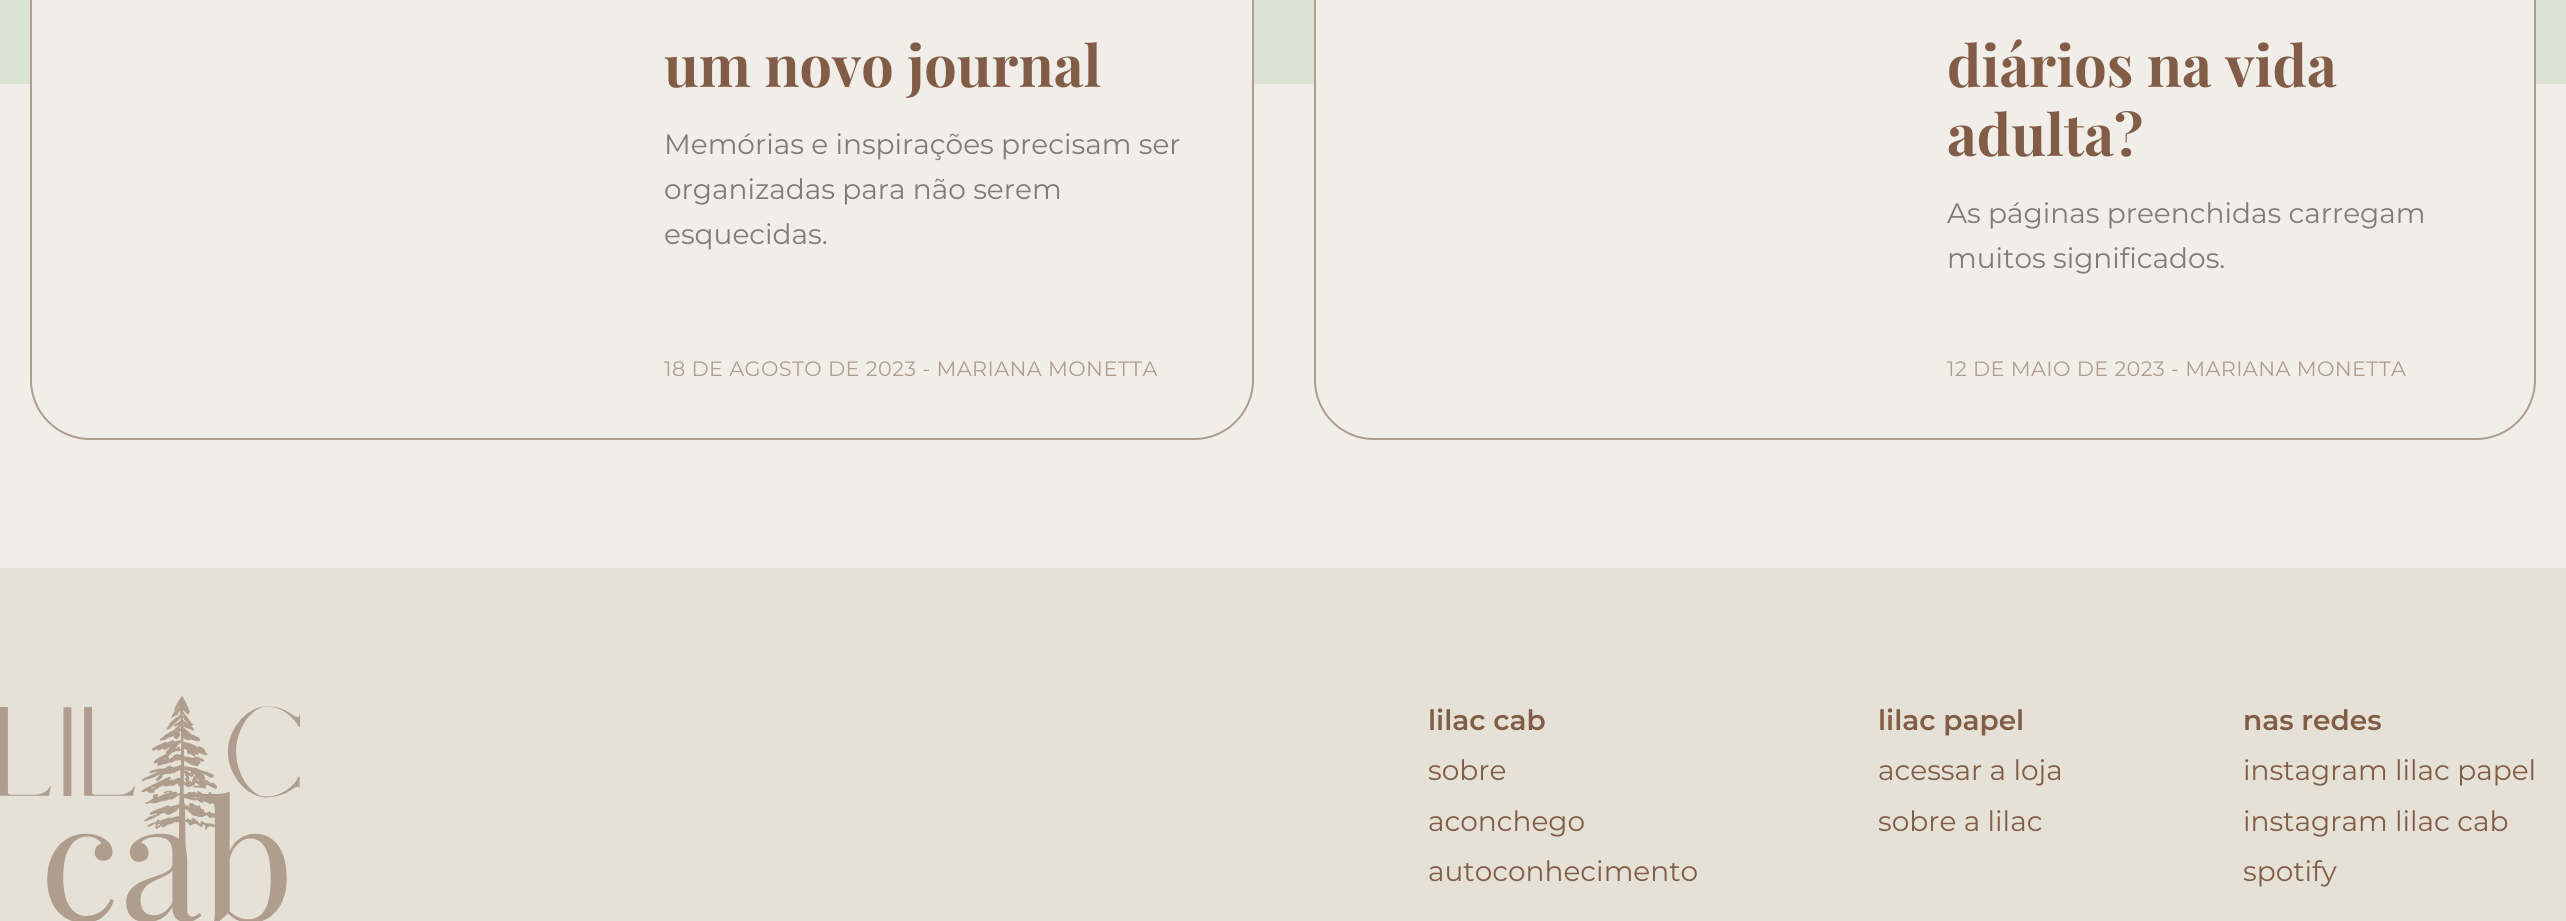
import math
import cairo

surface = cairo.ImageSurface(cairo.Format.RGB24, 2566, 921)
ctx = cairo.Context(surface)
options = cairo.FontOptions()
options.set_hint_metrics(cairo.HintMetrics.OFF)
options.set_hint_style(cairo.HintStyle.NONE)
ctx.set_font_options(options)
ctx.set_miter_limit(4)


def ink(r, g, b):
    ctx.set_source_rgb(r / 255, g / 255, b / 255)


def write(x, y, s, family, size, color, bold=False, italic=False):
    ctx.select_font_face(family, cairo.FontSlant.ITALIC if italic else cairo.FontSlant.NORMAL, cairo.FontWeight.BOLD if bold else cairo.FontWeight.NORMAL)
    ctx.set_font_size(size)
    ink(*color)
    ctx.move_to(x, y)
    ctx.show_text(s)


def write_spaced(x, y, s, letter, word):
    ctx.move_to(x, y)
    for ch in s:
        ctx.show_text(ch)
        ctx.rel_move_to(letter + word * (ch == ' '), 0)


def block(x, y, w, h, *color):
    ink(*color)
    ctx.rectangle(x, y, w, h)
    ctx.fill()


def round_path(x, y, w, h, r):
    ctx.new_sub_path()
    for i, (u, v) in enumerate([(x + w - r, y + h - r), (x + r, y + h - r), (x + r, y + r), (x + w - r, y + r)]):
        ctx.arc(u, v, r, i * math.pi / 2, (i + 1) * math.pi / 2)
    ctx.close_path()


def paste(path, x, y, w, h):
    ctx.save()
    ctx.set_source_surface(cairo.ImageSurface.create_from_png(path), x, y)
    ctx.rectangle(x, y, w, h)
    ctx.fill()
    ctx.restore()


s1 = dict(family="Playfair Display", size=57.5, color=(129, 93, 71), bold=True)
s2 = dict(family="Montserrat", size=28, color=(124, 124, 124))
s3 = dict(family="Montserrat SemiBold", size=28, color=(129, 93, 71))
s4 = dict(family="Montserrat", size=28, color=(129, 93, 71))

ink(241, 238, 233)
ctx.paint()
block(0, 0, 2566, 84, 219, 227, 212)
ink(241, 238, 233)
round_path(31, -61, 1222, 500, 59)
ctx.fill_preserve()
ink(175, 158, 142)
ctx.stroke()
write(664, 87, "um novo journal", **s1)
write(664, 154, "Memórias e inspirações precisam ser", **s2)
write(664, 199, "organizadas para não serem", **s2)
write(664, 244, "esquecidas.", **s2)
ctx.set_font_size(20.8)
ink(175, 158, 142)
write_spaced(664, 376, "18 DE AGOSTO DE 2023 - MARIANA MONETTA", 0.4, 0)
ink(241, 238, 233)
round_path(1315, -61, 1220, 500, 59)
ctx.fill_preserve()
ink(175, 158, 142)
ctx.stroke()
write(1947, 87, "diários na vida", **s1)
write(1947, 156, "adulta?", **s1)
write(1947, 223, "As páginas preenchidas carregam", **s2)
write(1947, 268, "muitos significados.", **s2)
ctx.set_font_size(20.8)
ink(175, 158, 142)
write_spaced(1947, 376, "12 DE MAIO DE 2023 - MARIANA MONETTA", 0.4, 0)
block(0, 568, 2566, 353, 230, 225, 214)
paste("pic1.png", 0, 696, 300, 225)
write(1428, 730, "lilac cab", **s3)
write(1428, 780, "sobre", **s4)
write(1428, 831, "aconchego", **s4)
write(1428, 881, "autoconhecimento", **s4)
write(1878, 730, "lilac papel", **s3)
write(1878, 780, "acessar a loja", **s4)
write(1878, 831, "sobre a lilac", **s4)
write(2243, 730, "nas redes", **s3)
write(2243, 780, "instagram lilac papel", **s4)
write(2243, 831, "instagram lilac cab", **s4)
write(2243, 881, "spotify", **s4)
surface.write_to_png("screenshot.png")
